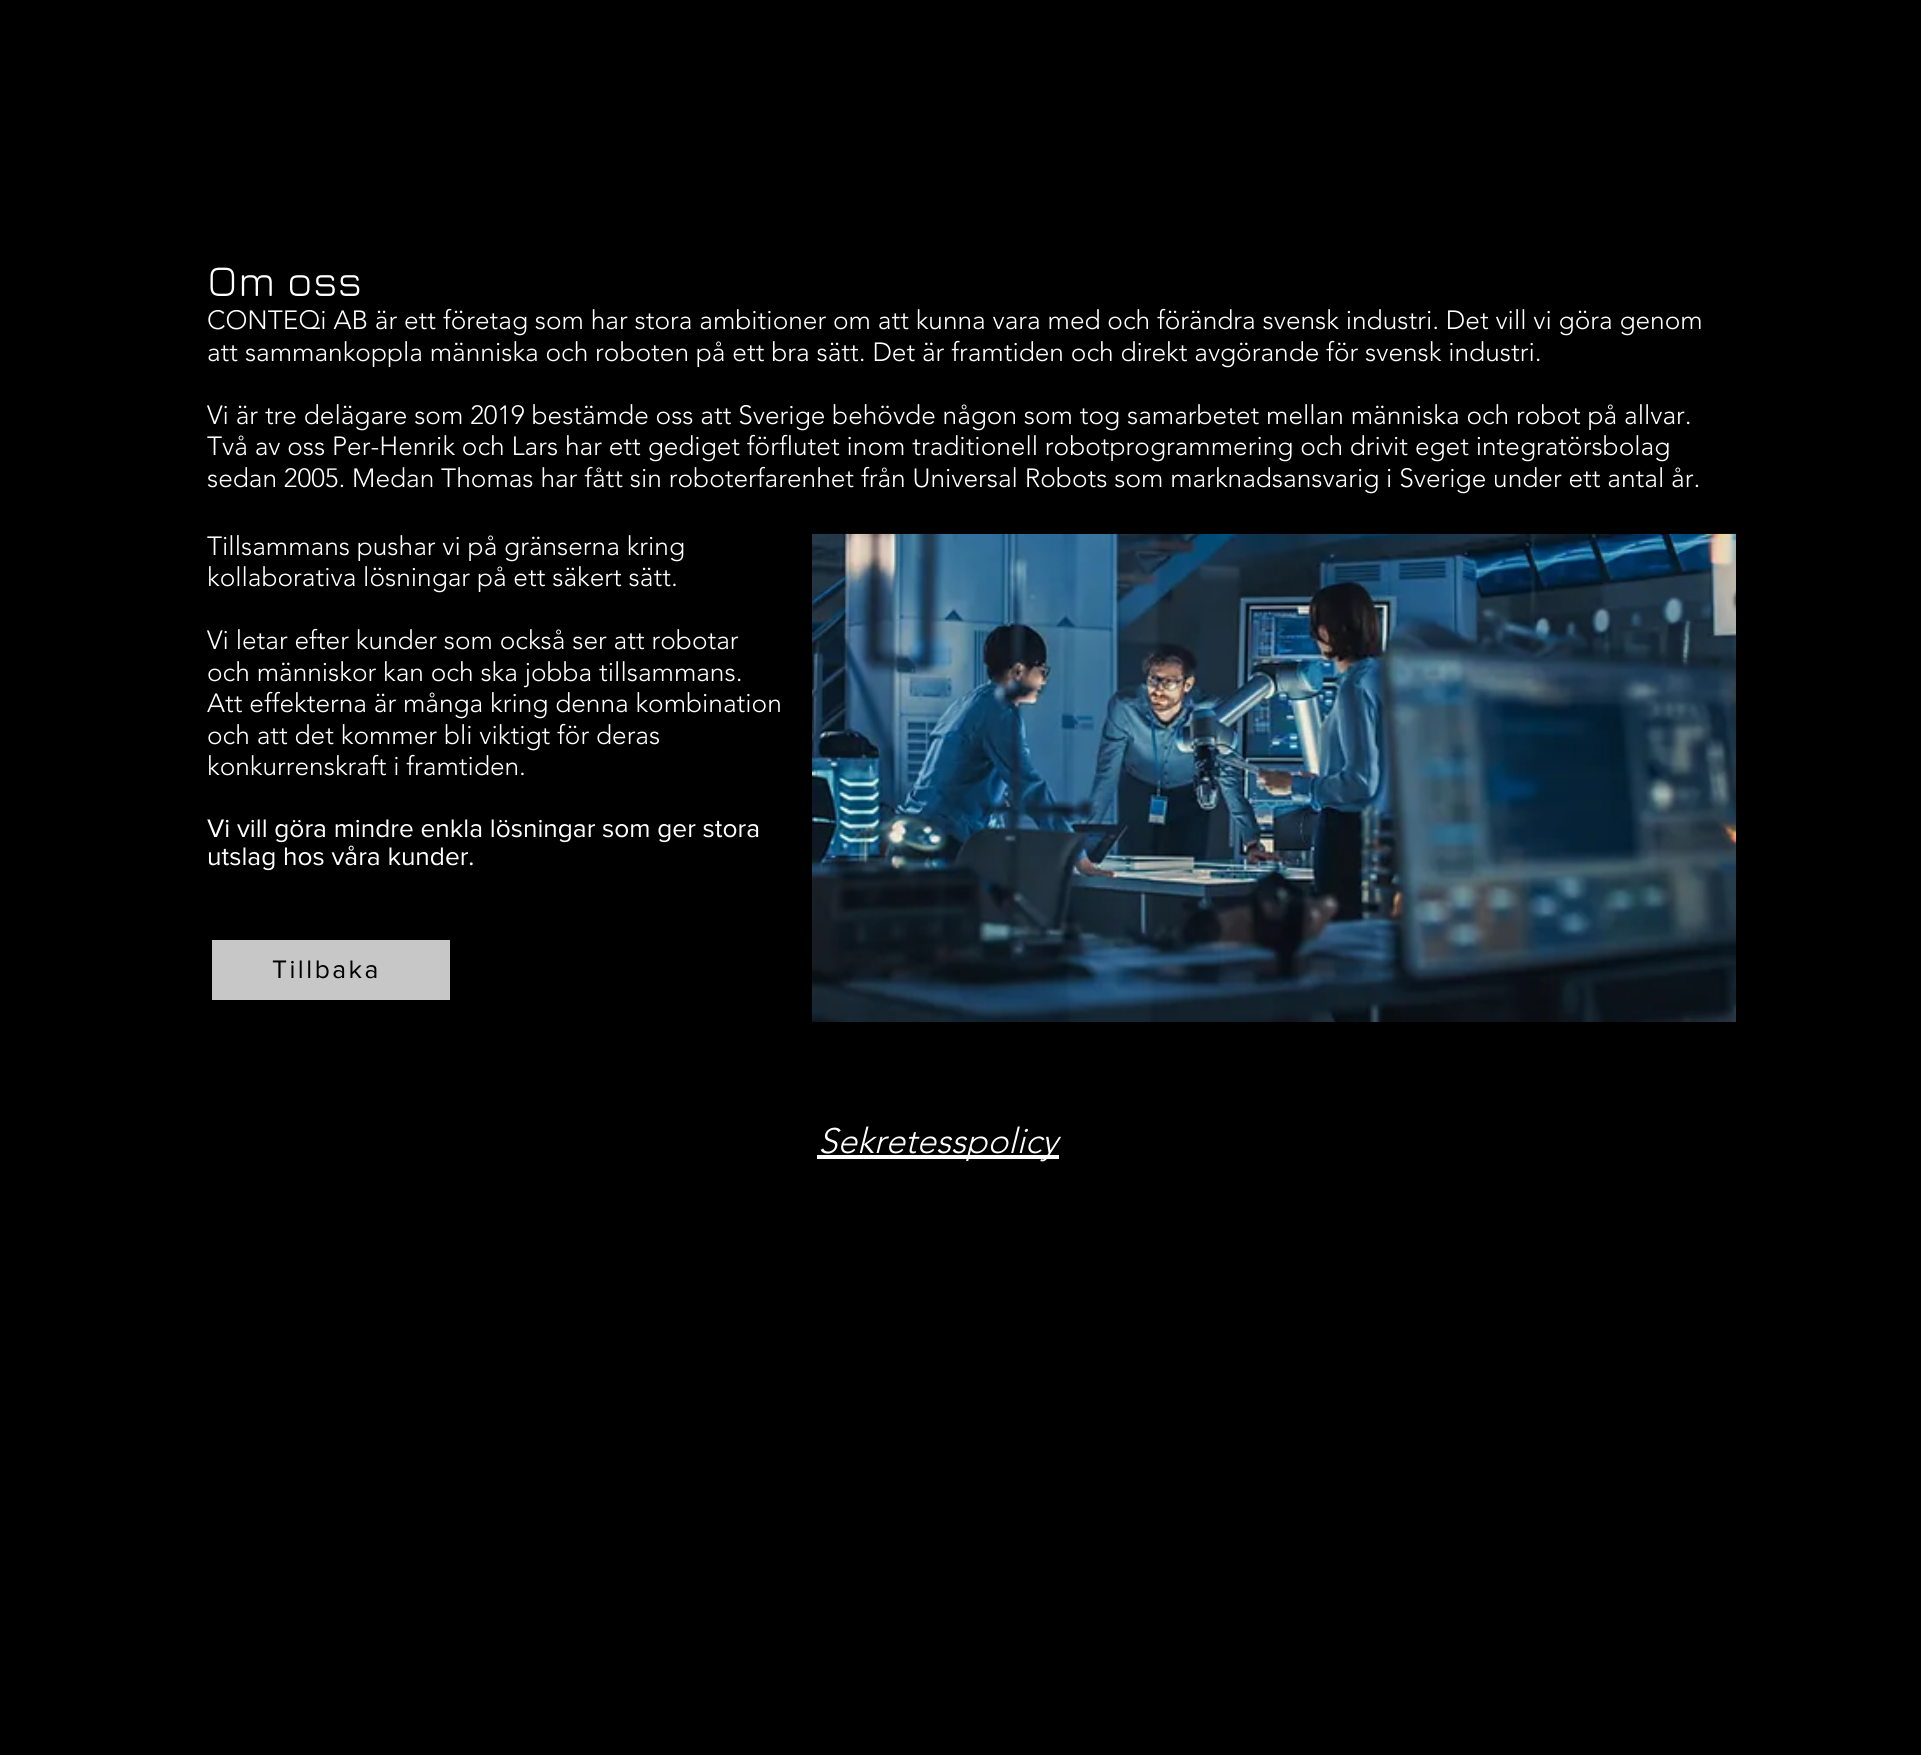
import math
import cairo

surface = cairo.ImageSurface(cairo.Format.RGB24, 1921, 1755)
ctx = cairo.Context(surface)
options = cairo.FontOptions()
options.set_hint_metrics(cairo.HintMetrics.OFF)
options.set_hint_style(cairo.HintStyle.NONE)
ctx.set_font_options(options)
ctx.set_miter_limit(4)


def ink(r, g, b):
    ctx.set_source_rgb(r / 255, g / 255, b / 255)


def write(x, y, s, family, size, color, bold=False, italic=False):
    ctx.select_font_face(family, cairo.FontSlant.ITALIC if italic else cairo.FontSlant.NORMAL, cairo.FontWeight.BOLD if bold else cairo.FontWeight.NORMAL)
    ctx.set_font_size(size)
    ink(*color)
    ctx.move_to(x, y)
    ctx.show_text(s)


def write_spaced(x, y, s, letter, word):
    ctx.move_to(x, y)
    for ch in s:
        ctx.show_text(ch)
        ctx.rel_move_to(letter + word * (ch == ' '), 0)


def block(x, y, w, h, *color):
    ink(*color)
    ctx.rectangle(x, y, w, h)
    ctx.fill()


def paste(path, x, y, w, h):
    ctx.save()
    ctx.set_source_surface(cairo.ImageSurface.create_from_png(path), x, y)
    ctx.rectangle(x, y, w, h)
    ctx.fill()
    ctx.restore()


s1 = dict(family="Jura", size=44, color=(255, 255, 255))
s2 = dict(family="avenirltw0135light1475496 Light", size=26.25, color=(255, 255, 255))
s3 = dict(family="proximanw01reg", size=26.25, color=(255, 255, 255))
s4 = dict(family="avenirltw0135light1475496 Light", size=35, color=(255, 255, 255), italic=True)

ink(0, 0, 0)
ctx.paint()
write(207, 296, "Om oss", **s1)
write(207, 329, "CONTEQi AB är ett företag som har stora ambitioner om att kunna vara med och förändra svensk industri. Det vill vi göra genom", **s2)
write(207, 361, "att sammankoppla människa och roboten på ett bra sätt. Det är framtiden och direkt avgörande för svensk industri.", **s2)
write(207, 424, "Vi är tre delägare som 2019 bestämde oss att Sverige behövde någon som tog samarbetet mellan människa och robot på allvar.", **s2)
write(207, 455, "Två av oss Per-Henrik och Lars har ett gediget förflutet inom traditionell robotprogrammering och drivit eget integratörsbolag", **s2)
write(207, 487, "sedan 2005. Medan Thomas har fått sin roboterfarenhet från Universal Robots som marknadsansvarig i Sverige under ett antal år.", **s2)
write(207, 555, "Tillsammans pushar vi på gränserna kring", **s2)
write(207, 586, "kollaborativa lösningar på ett säkert sätt.", **s2)
write(207, 649, "Vi letar efter kunder som också ser att robotar", **s2)
write(207, 681, "och människor kan och ska jobba tillsammans.", **s2)
write(207, 712, "Att effekterna är många kring denna kombination", **s2)
write(207, 744, "och att det kommer bli viktigt för deras", **s2)
write(207, 775, "konkurrenskraft i framtiden.", **s2)
write(207, 837, "Vi vill göra mindre enkla lösningar som ger stora", **s3)
write(207, 865, "utslag hos våra kunder.", **s3)
paste("pic1.png", 812, 533, 924, 489)
block(212, 940, 238, 60, 199, 199, 199)
ink(0, 0, 0)
write_spaced(272, 978, "Tillbaka", 2.5, 0)
block(817, 1155, 242, 4, 255, 255, 255)
write(818, 1153, "Sekretesspolicy", **s4)
surface.write_to_png("screenshot.png")
